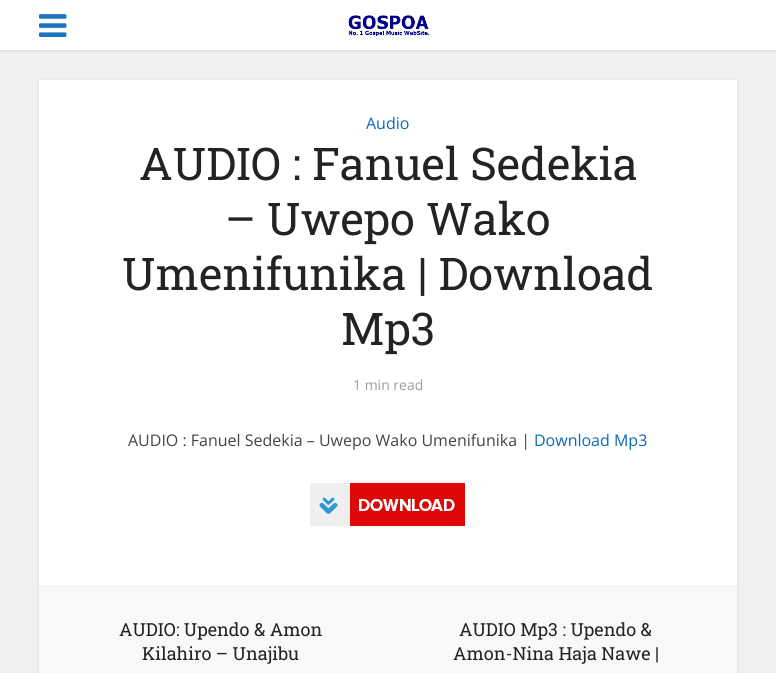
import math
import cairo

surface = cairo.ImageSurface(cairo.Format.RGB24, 776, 673)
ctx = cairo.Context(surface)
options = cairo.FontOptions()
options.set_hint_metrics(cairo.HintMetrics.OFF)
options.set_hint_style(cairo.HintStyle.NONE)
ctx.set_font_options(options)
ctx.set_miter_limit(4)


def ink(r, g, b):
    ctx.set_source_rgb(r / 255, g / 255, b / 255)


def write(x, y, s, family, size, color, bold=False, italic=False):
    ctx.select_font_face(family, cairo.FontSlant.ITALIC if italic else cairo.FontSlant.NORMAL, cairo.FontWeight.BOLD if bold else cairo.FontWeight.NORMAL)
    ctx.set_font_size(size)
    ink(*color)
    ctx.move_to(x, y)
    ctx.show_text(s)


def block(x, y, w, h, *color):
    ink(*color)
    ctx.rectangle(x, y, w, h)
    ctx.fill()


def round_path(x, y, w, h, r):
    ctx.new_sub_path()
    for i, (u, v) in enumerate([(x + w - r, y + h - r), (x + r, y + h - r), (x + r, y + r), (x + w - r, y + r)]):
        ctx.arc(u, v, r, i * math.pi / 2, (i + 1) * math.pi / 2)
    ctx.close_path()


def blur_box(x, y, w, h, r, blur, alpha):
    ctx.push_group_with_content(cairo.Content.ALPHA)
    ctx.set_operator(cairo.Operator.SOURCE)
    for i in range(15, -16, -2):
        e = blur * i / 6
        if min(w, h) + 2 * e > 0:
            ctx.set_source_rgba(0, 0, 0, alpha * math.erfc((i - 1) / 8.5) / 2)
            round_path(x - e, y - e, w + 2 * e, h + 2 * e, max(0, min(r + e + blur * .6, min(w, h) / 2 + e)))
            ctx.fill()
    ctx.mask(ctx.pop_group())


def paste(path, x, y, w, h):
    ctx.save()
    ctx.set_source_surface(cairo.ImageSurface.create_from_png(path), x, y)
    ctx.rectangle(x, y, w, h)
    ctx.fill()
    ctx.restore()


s1 = dict(family="Open Sans", size=16, color=(7, 105, 191))
s2 = dict(family="Roboto Slab", size=45, color=(35, 35, 35))
s3 = dict(family="Open Sans", size=14, color=(155, 155, 155))
s4 = dict(family="Open Sans", size=16, color=(68, 68, 68))
s5 = dict(family="Roboto Slab", size=18, color=(35, 35, 35))

ink(240, 240, 240)
ctx.paint()
ink(0, 0, 0)
blur_box(0, 1, 776, 50, 0, 1.5, 0.1)
block(0, 0, 776, 50, 255, 255, 255)
paste("pic1.png", 39, 14, 28, 23)
paste("pic2.png", 348, 15, 82, 22)
ink(0, 0, 0)
blur_box(39, 81, 698, 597, 0, 1.5, 0.1)
block(39, 80, 698, 506, 255, 255, 255)
write(366, 129, "Audio", **s1)
write(139, 180, "AUDIO : Fanuel Sedekia", **s2)
write(225, 235, "– Uwepo Wako", **s2)
write(122, 290, "Umenifunika | Download", **s2)
write(341, 345, "Mp3", **s2)
write(353, 390, "1 min read", **s3)
write(128, 446, "AUDIO : Fanuel Sedekia – Uwepo Wako Umenifunika |", **s4)
write(534, 446, "Download Mp3", **s1)
paste("pic3.png", 310, 483, 155, 43)
block(39, 587, 698, 86, 249, 249, 249)
block(39, 586, 698, 1, 237, 237, 237)
write(119, 636, "AUDIO: Upendo & Amon", **s5)
write(142, 660, "Kilahiro – Unajibu", **s5)
write(459, 636, "AUDIO Mp3 : Upendo &", **s5)
write(453, 660, "Amon-Nina Haja Nawe |", **s5)
surface.write_to_png("screenshot.png")
